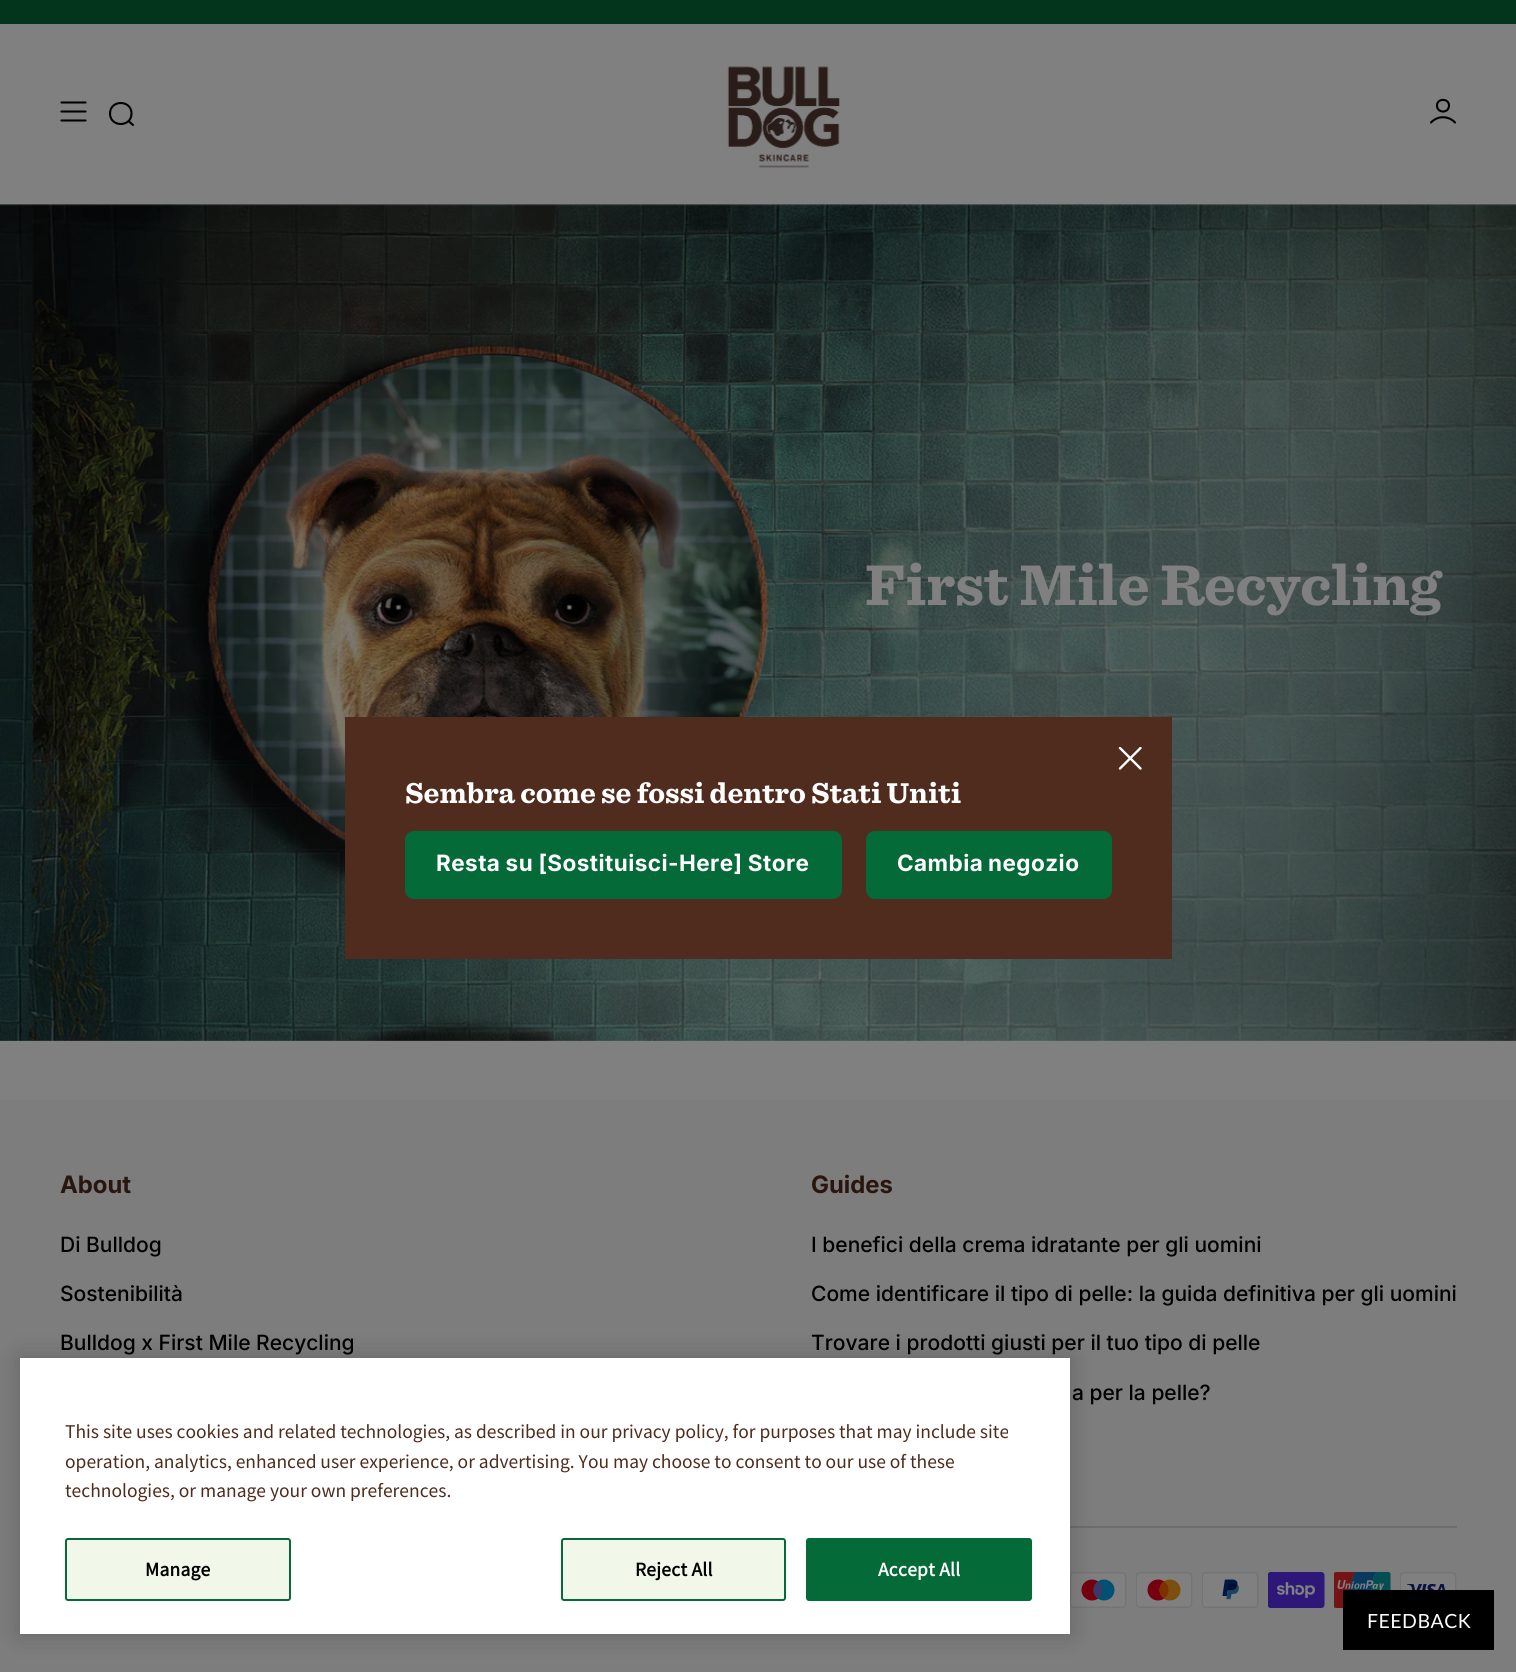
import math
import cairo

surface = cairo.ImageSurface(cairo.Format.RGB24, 1516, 1672)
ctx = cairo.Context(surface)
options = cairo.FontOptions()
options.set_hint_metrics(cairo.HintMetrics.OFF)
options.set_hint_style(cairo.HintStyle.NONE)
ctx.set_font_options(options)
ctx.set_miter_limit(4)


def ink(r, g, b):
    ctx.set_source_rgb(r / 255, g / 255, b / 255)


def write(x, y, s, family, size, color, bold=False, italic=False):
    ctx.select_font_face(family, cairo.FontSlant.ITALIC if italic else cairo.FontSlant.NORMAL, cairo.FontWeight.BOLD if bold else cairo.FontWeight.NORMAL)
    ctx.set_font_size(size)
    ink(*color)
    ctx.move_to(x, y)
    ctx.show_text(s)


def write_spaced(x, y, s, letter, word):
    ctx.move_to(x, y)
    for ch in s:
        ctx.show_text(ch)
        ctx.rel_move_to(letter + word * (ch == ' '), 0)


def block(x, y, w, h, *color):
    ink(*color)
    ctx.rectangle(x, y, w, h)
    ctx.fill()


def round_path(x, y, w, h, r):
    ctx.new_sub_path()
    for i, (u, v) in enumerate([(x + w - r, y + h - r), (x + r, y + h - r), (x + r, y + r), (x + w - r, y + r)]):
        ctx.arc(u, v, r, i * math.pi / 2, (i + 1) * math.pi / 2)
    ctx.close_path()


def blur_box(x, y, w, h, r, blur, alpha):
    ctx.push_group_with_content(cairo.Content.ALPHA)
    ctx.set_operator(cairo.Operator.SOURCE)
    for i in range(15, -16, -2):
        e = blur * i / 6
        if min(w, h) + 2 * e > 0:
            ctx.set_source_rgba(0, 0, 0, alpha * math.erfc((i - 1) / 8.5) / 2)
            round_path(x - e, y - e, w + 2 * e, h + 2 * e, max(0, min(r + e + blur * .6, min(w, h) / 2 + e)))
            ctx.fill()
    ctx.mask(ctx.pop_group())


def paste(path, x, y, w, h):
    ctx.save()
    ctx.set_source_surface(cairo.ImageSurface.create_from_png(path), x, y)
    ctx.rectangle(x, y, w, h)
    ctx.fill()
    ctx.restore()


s1 = dict(family="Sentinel", size=60, color=(128, 128, 128), bold=True)
s2 = dict(family="Sentinel", size=30, color=(255, 255, 255), bold=True)
s3 = dict(family="Inter", size=24, color=(40, 22, 15), bold=True)
s4 = dict(family="Inter Medium", size=21, color=(0, 0, 0))
s5 = dict(family="Source Sans Pro", size=19.5, color=(79, 44, 29))

ink(128, 128, 128)
ctx.paint()
block(0, 0, 1516, 24, 2, 53, 28)
ctx.new_path()
ctx.move_to(61.5, 102.5)
ctx.line_to(85.5, 102.5)
ctx.move_to(61.5, 111.5)
ctx.line_to(85.5, 111.5)
ctx.move_to(61.5, 120.5)
ctx.line_to(85.5, 120.5)
ink(0, 0, 0)
ctx.set_line_width(2.1)
ctx.set_line_cap(cairo.LineCap.ROUND)
ctx.set_line_join(cairo.LineJoin.ROUND)
ctx.stroke()
ctx.new_path()
ctx.move_to(133, 125)
ctx.line_to(128.5, 121)
ctx.move_to(131.5, 113.5)
ctx.curve_to(131.5, 127.5, 110, 127.5, 110, 113.5)
ctx.curve_to(110, 99.5, 131.5, 99.5, 131.5, 113.5)
ctx.close_path()
ctx.stroke()
paste("pic1.png", 727, 66, 113, 102)
ctx.new_path()
ctx.move_to(1431, 122.5)
ctx.curve_to(1437.5, 115.5, 1448.5, 115.5, 1455, 122.5)
ctx.move_to(1449, 105.5)
ctx.curve_to(1449, 113.5, 1437, 113.5, 1437, 105.5)
ctx.curve_to(1437, 98, 1449, 98, 1449, 105.5)
ctx.close_path()
ctx.stroke()
paste("pic2.png", 0, 204, 1516, 837)
write(865, 605, "First Mile Recycling", **s1)
block(345, 717, 827, 242, 79, 44, 29)
ctx.save()
ctx.rectangle(1118, 747, 24, 24)
ctx.clip()
ctx.new_path()
ctx.move_to(1120, 768.5)
ctx.line_to(1140.5, 748)
ctx.move_to(1120, 748)
ctx.line_to(1140.5, 768.5)
ink(255, 255, 255)
ctx.set_line_width(2.4)
ctx.stroke()
ctx.restore()
write(405, 803, "Sembra come se fossi dentro Stati Uniti", **s2)
ink(4, 106, 56)
round_path(405, 831, 437, 68, 9)
ctx.fill()
ctx.select_font_face("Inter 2", cairo.FontSlant.NORMAL, cairo.FontWeight.BOLD)
ctx.set_font_size(22.5)
ink(255, 255, 255)
write_spaced(436, 871, "Resta su [Sostituisci-Here] Store", 0.45, -0.5)
ink(4, 106, 56)
round_path(866, 831, 246, 68, 9)
ctx.fill()
ink(255, 255, 255)
write_spaced(897, 871, "Cambia negozio", 0.45, -1)
block(0, 1100, 1516, 572, 125, 125, 125)
write(60, 1193, "About", **s3)
write(60, 1252, "Di Bulldog", **s4)
write(60, 1301, "Sostenibilità", **s4)
write(60, 1350, "Bulldog x First Mile Recycling", **s4)
write(811, 1193, "Guides", **s3)
write(811, 1252, "I benefici della crema idratante per gli uomini", **s4)
write(811, 1301, "Come identificare il tipo di pelle: la guida definitiva per gli uomini", **s4)
write(811, 1350, "Trovare i prodotti giusti per il tuo tipo di pelle", **s4)
write(1072, 1400, "a per la pelle?", **s4)
block(1070, 1526, 387, 2, 109, 109, 109)
paste("pic3.png", 1070, 1572, 57, 36)
paste("pic4.png", 1136, 1572, 57, 36)
paste("pic5.png", 1202, 1572, 57, 36)
paste("pic6.png", 1268, 1572, 57, 36)
paste("pic7.png", 1334, 1572, 57, 36)
paste("pic8.png", 1400, 1572, 57, 18)
ink(0, 0, 0)
blur_box(20, 1358, 1050, 276, 0, 13.5, 0.2)
block(20, 1358, 1050, 276, 255, 255, 255)
write(65, 1438, "This site uses cookies and related technologies, as described in our privacy policy, for purposes that may include site", **s5)
write(65, 1468, "operation, analytics, enhanced user experience, or advertising. You may choose to consent to our use of these", **s5)
write(65, 1497, "technologies, or manage your own preferences.", **s5)
ink(241, 248, 233)
round_path(66, 1539, 224, 61, 2)
ctx.fill_preserve()
ink(4, 106, 56)
ctx.set_line_width(2)
ctx.set_line_cap(cairo.LineCap.BUTT)
ctx.set_line_join(cairo.LineJoin.MITER)
ctx.stroke()
ctx.select_font_face("Source Sans Pro", cairo.FontSlant.NORMAL, cairo.FontWeight.BOLD)
ink(0, 0, 0)
write_spaced(145, 1576, "Manage", 0.25, 0)
ink(241, 248, 233)
round_path(562, 1539, 223, 61, 2)
ctx.fill_preserve()
ink(4, 106, 56)
ctx.stroke()
ink(0, 0, 0)
write_spaced(635, 1576, "Reject All", 0.25, 0)
ink(4, 106, 56)
round_path(807, 1539, 224, 61, 2)
ctx.fill_preserve()
ctx.stroke()
ink(255, 255, 255)
write_spaced(878, 1576, "Accept All", 0.25, 0)
block(1343, 1590, 151, 60, 0, 0, 0)
ctx.select_font_face("Lato")
ink(255, 255, 255)
write_spaced(1367, 1628, "FEEDBACK", 0.5, 0)
surface.write_to_png("screenshot.png")
